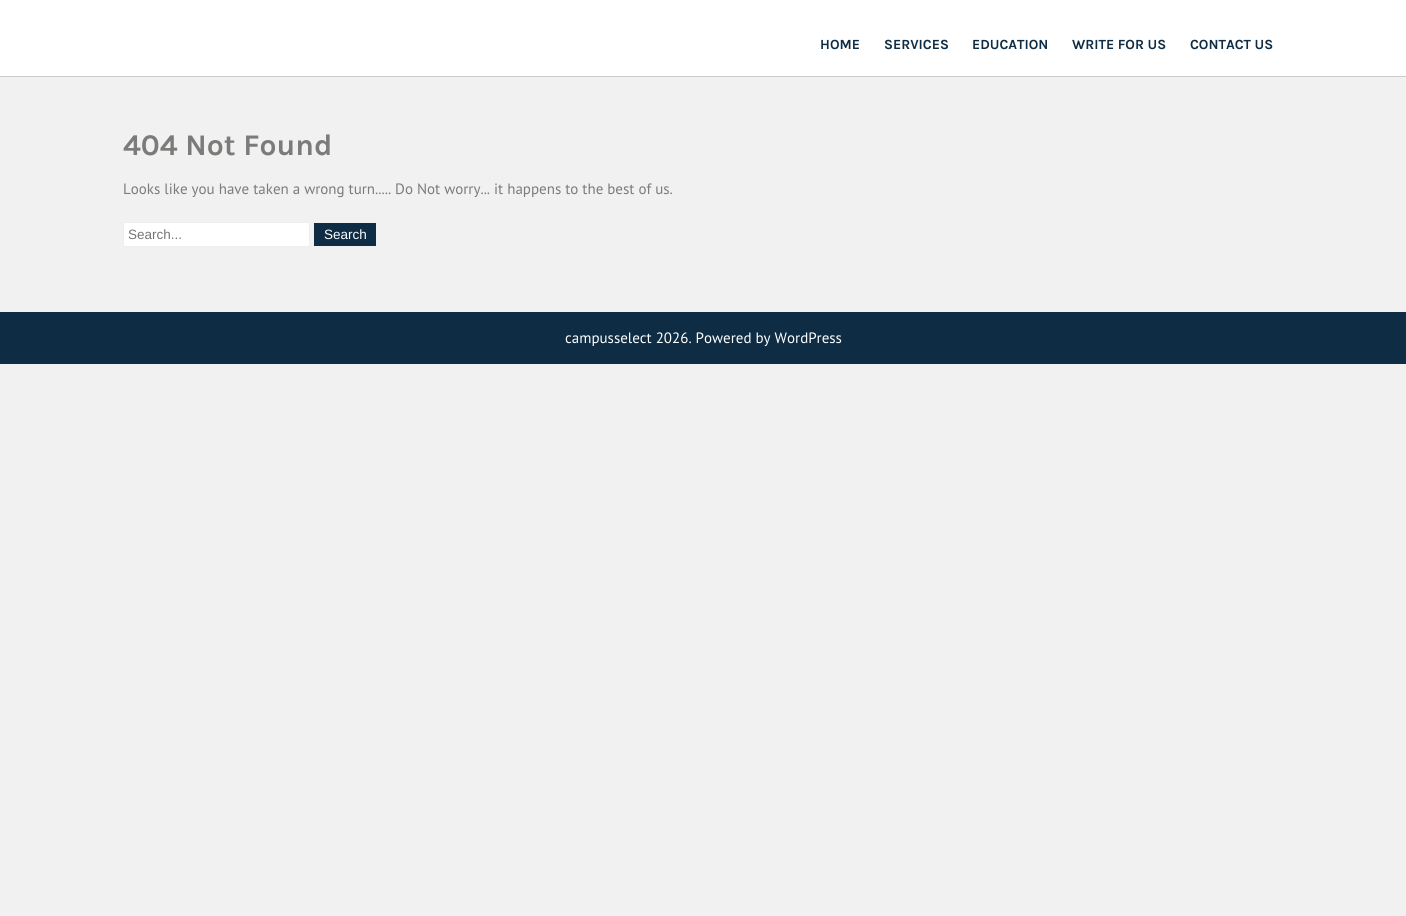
import math
import cairo

surface = cairo.ImageSurface(cairo.Format.RGB24, 1406, 916)
ctx = cairo.Context(surface)
options = cairo.FontOptions()
options.set_hint_metrics(cairo.HintMetrics.OFF)
options.set_hint_style(cairo.HintStyle.NONE)
ctx.set_font_options(options)
ctx.set_miter_limit(4)


def ink(r, g, b):
    ctx.set_source_rgb(r / 255, g / 255, b / 255)


def write(x, y, s, family, size, color, bold=False, italic=False):
    ctx.select_font_face(family, cairo.FontSlant.ITALIC if italic else cairo.FontSlant.NORMAL, cairo.FontWeight.BOLD if bold else cairo.FontWeight.NORMAL)
    ctx.set_font_size(size)
    ink(*color)
    ctx.move_to(x, y)
    ctx.show_text(s)


def block(x, y, w, h, *color):
    ink(*color)
    ctx.rectangle(x, y, w, h)
    ctx.fill()


s1 = dict(family="Karla", size=14, color=(14, 45, 69), bold=True)
s2 = dict(family="Karla", size=30, color=(124, 123, 121), bold=True)
s3 = dict(family="PT Sans", size=15, color=(124, 123, 121))
s4 = dict(family="Liberation Sans", size=13.5, color=(117, 117, 117))
s5 = dict(family="Liberation Sans", size=13.5, color=(255, 255, 255))
s6 = dict(family="PT Sans", size=15, color=(255, 255, 255))

ink(241, 241, 241)
ctx.paint()
block(0, 0, 1406, 76, 255, 255, 255)
block(0, 76, 1406, 1, 204, 204, 204)
write(820, 49, "HOME", **s1)
write(884, 49, "SERVICES", **s1)
write(972, 49, "EDUCATION", **s1)
write(1072, 49, "WRITE FOR US", **s1)
write(1190, 49, "CONTACT US", **s1)
write(123, 155, "404 Not Found", **s2)
write(123, 194, "Looks like you have taken a wrong turn..... Do Not worry... it happens to the best of us.", **s3)
ink(255, 255, 255)
ctx.rectangle(123.5, 222.5, 186, 24)
ctx.fill_preserve()
ink(238, 238, 238)
ctx.set_line_width(1)
ctx.stroke()
write(128, 239, "Search...", **s4)
block(314, 223, 62, 23, 14, 45, 69)
write(324, 239, "Search", **s5)
block(0, 312, 1406, 52, 14, 45, 69)
write(565, 343, "campusselect 2026. Powered by WordPress", **s6)
surface.write_to_png("screenshot.png")
